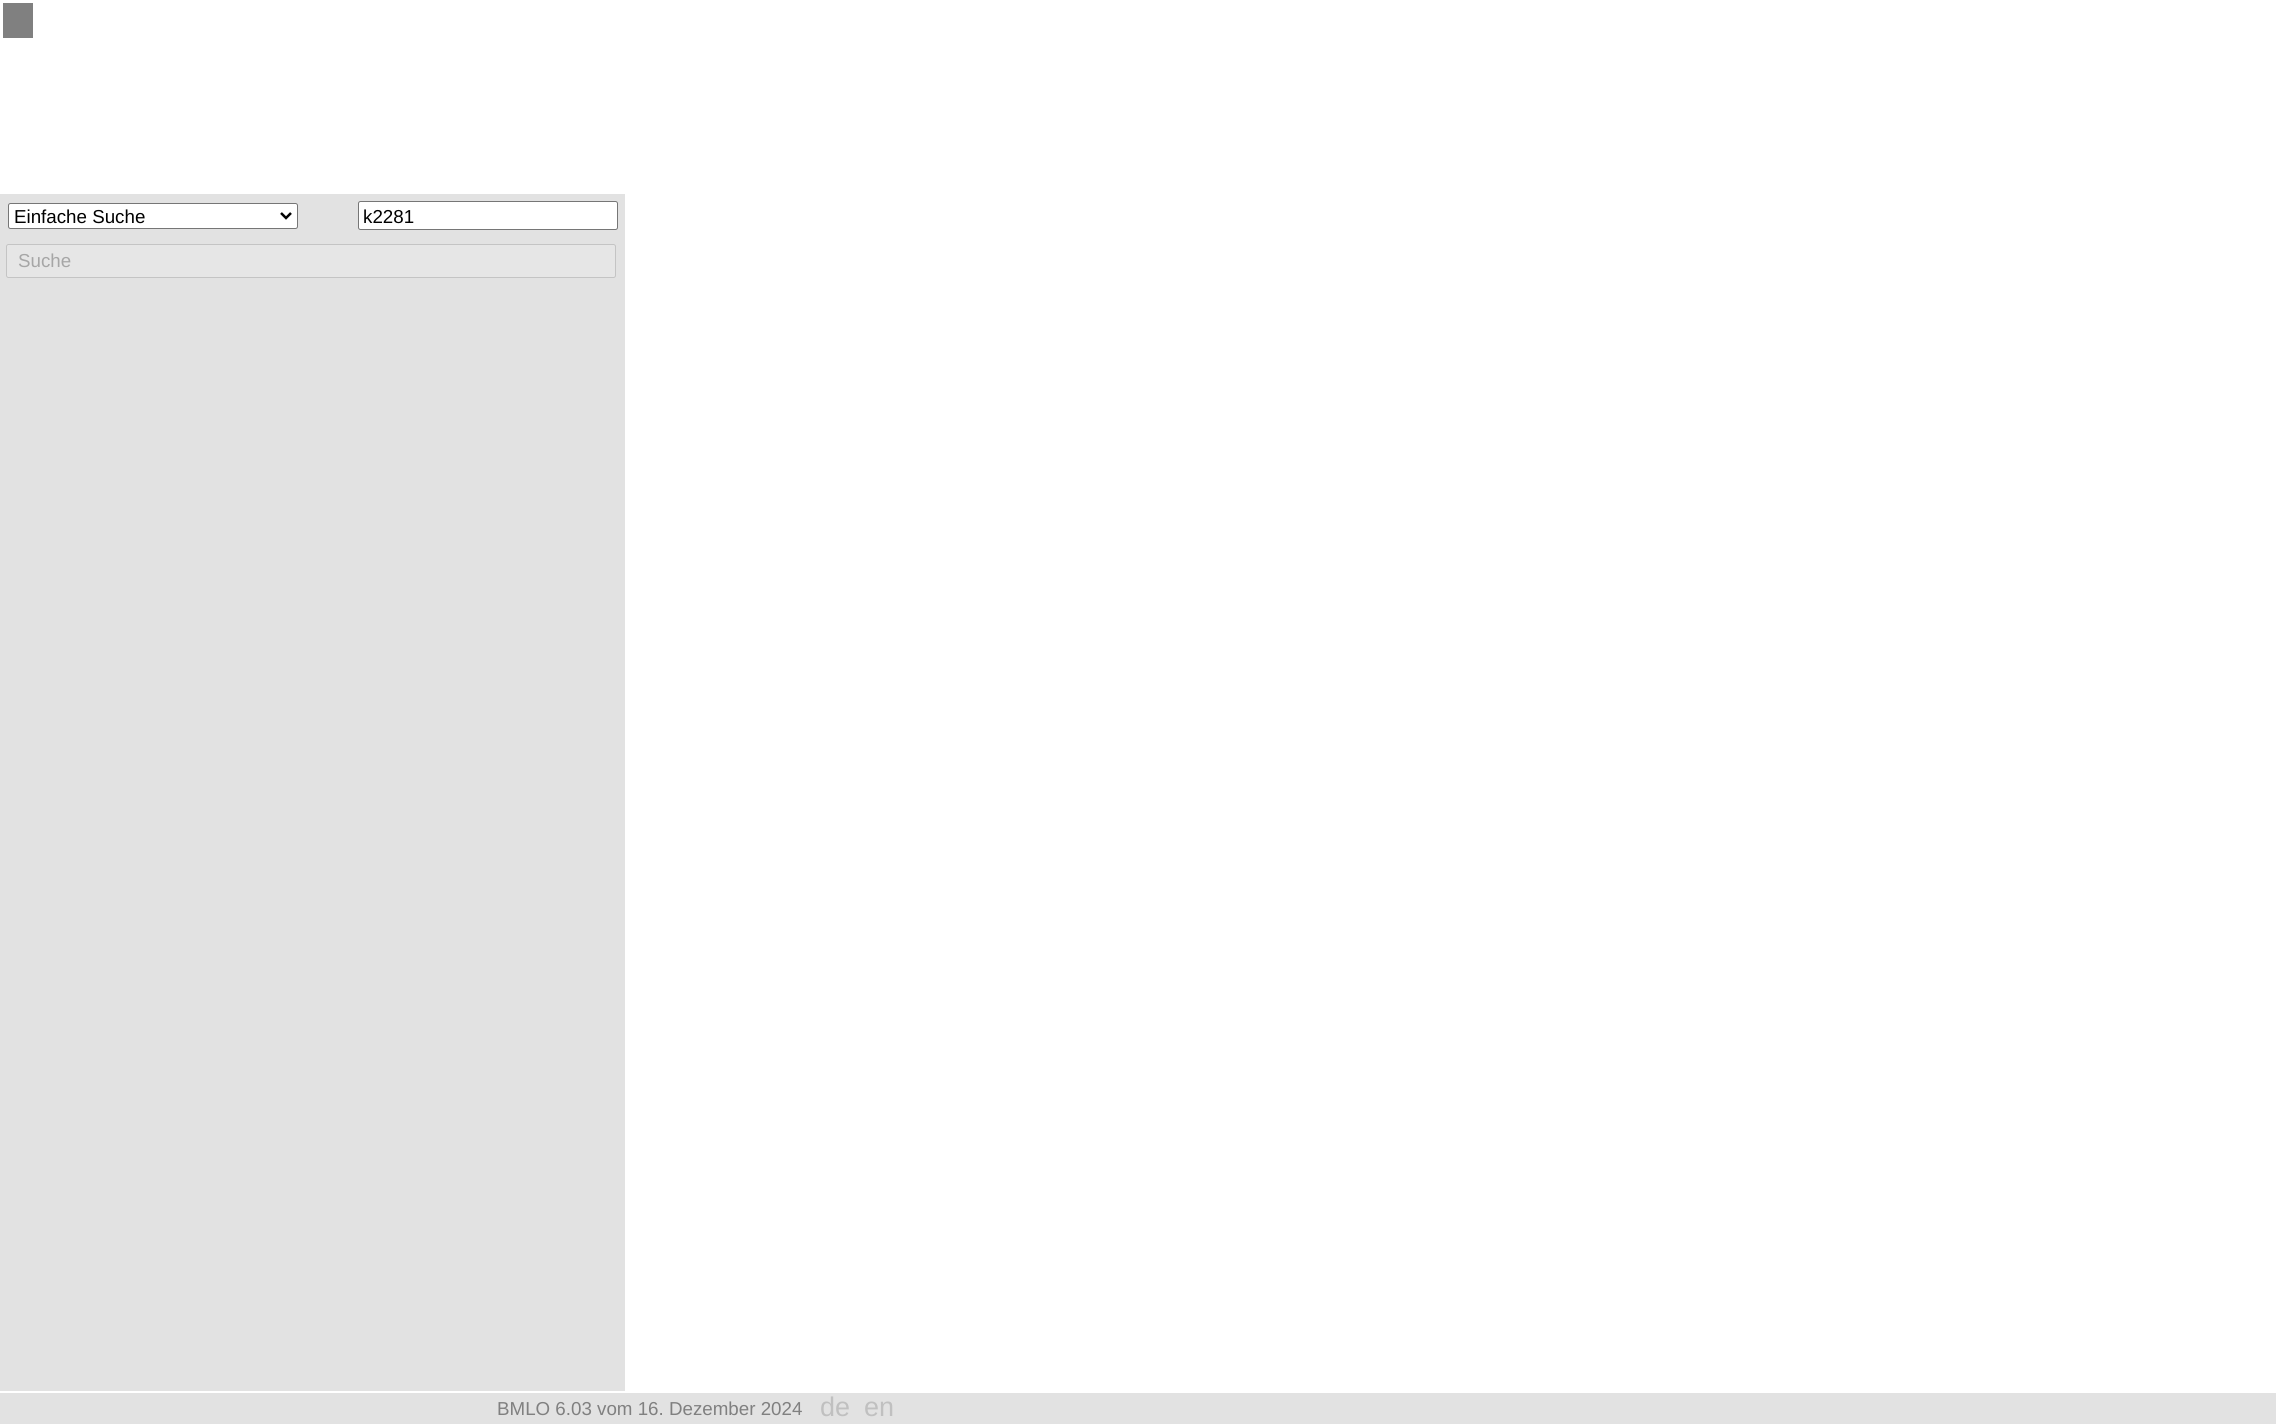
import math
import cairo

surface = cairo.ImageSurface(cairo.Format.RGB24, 2276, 1424)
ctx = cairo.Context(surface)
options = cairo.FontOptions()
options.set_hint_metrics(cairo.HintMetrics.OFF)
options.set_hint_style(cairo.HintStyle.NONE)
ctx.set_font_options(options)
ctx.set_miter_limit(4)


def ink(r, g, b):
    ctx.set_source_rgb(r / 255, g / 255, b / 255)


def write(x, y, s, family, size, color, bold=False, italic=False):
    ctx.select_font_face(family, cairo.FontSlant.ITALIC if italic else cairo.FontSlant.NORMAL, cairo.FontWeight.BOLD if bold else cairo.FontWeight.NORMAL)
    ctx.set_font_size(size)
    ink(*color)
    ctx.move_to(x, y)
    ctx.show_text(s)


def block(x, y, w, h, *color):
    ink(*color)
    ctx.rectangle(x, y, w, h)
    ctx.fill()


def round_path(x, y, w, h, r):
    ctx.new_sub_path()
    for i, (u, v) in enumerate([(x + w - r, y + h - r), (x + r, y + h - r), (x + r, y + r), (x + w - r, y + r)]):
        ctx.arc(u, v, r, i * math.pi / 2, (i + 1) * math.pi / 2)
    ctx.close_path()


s1 = dict(family="Liberation Sans", size=18.75, color=(0, 0, 0))
s2 = dict(family="Liberation Sans", size=18.75, color=(166, 166, 166))
s3 = dict(family="Liberation Sans", size=18.75, color=(128, 128, 128))
s4 = dict(family="Liberation Sans", size=27, color=(192, 192, 192))

ink(255, 255, 255)
ctx.paint()
block(3, 3, 30, 35, 128, 128, 128)
block(0, 194, 625, 1197, 226, 226, 226)
ink(255, 255, 255)
round_path(8.5, 203.5, 289, 25, 2)
ctx.fill_preserve()
ink(118, 118, 118)
ctx.set_line_width(1)
ctx.stroke()
ctx.new_path()
ctx.move_to(281, 213)
ctx.line_to(286, 218)
ctx.line_to(291, 213)
ink(0, 0, 0)
ctx.set_line_width(2.5)
ctx.stroke()
write(14, 223, "Einfache Suche", **s1)
ink(255, 255, 255)
round_path(358.5, 201.5, 259, 28, 2)
ctx.fill_preserve()
ink(118, 118, 118)
ctx.set_line_width(1)
ctx.stroke()
write(363, 223, "k2281", **s1)
ink(230, 230, 230)
round_path(6.5, 244.5, 609, 33, 2)
ctx.fill_preserve()
ink(196, 196, 196)
ctx.stroke()
write(18, 267, "Suche", **s2)
block(0, 1393, 2276, 31, 226, 226, 226)
write(497, 1415, "BMLO 6.03 vom 16. Dezember 2024", **s3)
write(820, 1416, "de", **s4)
write(864, 1416, "en", **s4)
surface.write_to_png("screenshot.png")
